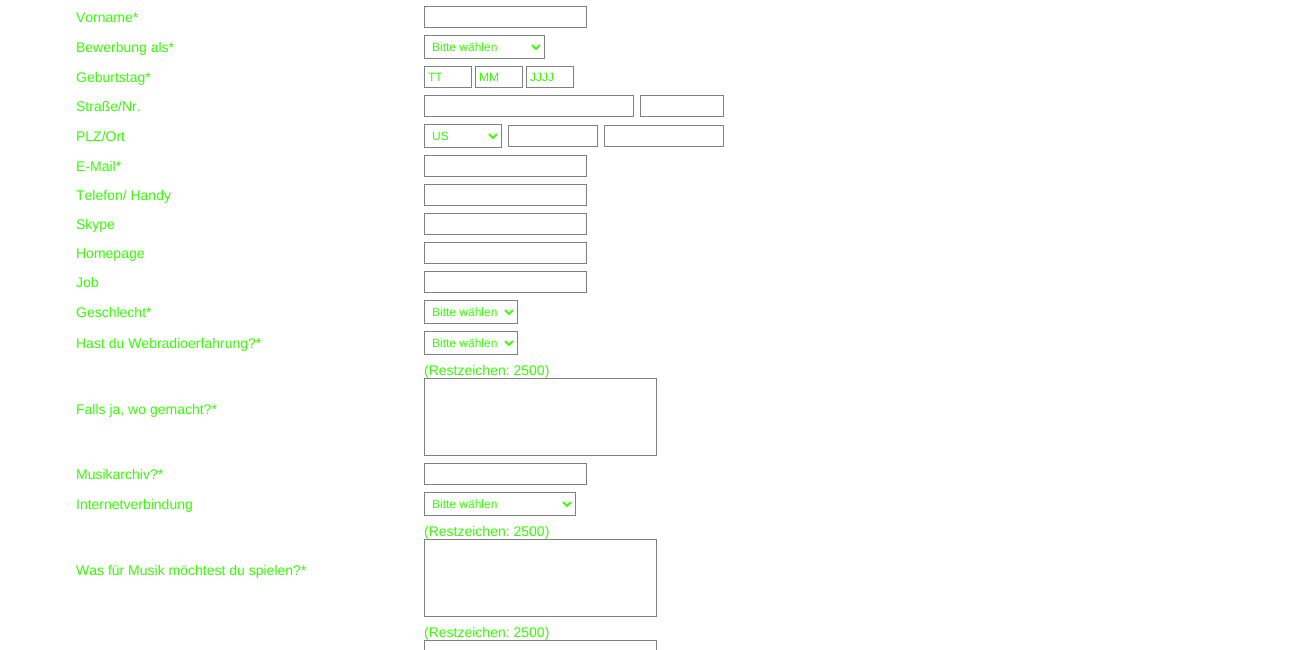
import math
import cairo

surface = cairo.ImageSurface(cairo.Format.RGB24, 1303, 650)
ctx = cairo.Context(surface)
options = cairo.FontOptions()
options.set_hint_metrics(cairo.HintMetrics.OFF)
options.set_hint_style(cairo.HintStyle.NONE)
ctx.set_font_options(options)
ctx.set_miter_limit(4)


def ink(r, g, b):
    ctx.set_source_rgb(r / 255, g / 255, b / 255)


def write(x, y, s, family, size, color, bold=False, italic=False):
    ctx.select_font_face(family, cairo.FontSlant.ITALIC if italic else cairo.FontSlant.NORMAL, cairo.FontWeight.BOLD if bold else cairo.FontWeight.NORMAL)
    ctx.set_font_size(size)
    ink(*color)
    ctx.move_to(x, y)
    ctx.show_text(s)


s1 = dict(family="Liberation Sans", size=14, color=(51, 255, 0))
s2 = dict(family="Liberation Sans", size=12, color=(51, 255, 0))

ink(255, 255, 255)
ctx.paint()
write(76, 22, "Vorname*", **s1)
ctx.rectangle(424.5, 6.5, 162, 21)
ink(128, 128, 128)
ctx.set_line_width(1)
ctx.stroke()
write(76, 52, "Bewerbung als*", **s1)
ctx.rectangle(424.5, 35.5, 120, 23)
ink(128, 128, 128)
ctx.stroke()
ctx.new_path()
ctx.move_to(532, 45)
ctx.line_to(536, 49)
ctx.line_to(540, 45)
ink(51, 255, 0)
ctx.set_line_width(2)
ctx.stroke()
write(432, 51, "Bitte wählen", **s2)
write(76, 82, "Geburtstag*", **s1)
ctx.rectangle(424.5, 66.5, 47, 21)
ink(128, 128, 128)
ctx.set_line_width(1)
ctx.stroke()
write(428, 81, "TT", **s2)
ctx.rectangle(475.5, 66.5, 47, 21)
ink(128, 128, 128)
ctx.stroke()
write(479, 81, "MM", **s2)
ctx.rectangle(526.5, 66.5, 47, 21)
ink(128, 128, 128)
ctx.stroke()
write(530, 81, "JJJJ", **s2)
write(76, 111, "Straße/Nr.", **s1)
ctx.rectangle(424.5, 95.5, 209, 21)
ink(128, 128, 128)
ctx.stroke()
ctx.rectangle(640.5, 95.5, 83, 21)
ctx.stroke()
write(76, 141, "PLZ/Ort", **s1)
ctx.rectangle(424.5, 124.5, 77, 23)
ink(128, 128, 128)
ctx.stroke()
ctx.new_path()
ctx.move_to(489, 134)
ctx.line_to(493, 138)
ctx.line_to(497, 134)
ink(51, 255, 0)
ctx.set_line_width(2)
ctx.stroke()
write(432, 140, "US", **s2)
ctx.rectangle(508.5, 125.5, 89, 21)
ink(128, 128, 128)
ctx.set_line_width(1)
ctx.stroke()
ctx.rectangle(604.5, 125.5, 119, 21)
ctx.stroke()
write(76, 171, "E-Mail*", **s1)
ctx.rectangle(424.5, 155.5, 162, 21)
ink(128, 128, 128)
ctx.stroke()
write(76, 200, "Telefon/ Handy", **s1)
ctx.rectangle(424.5, 184.5, 162, 21)
ink(128, 128, 128)
ctx.stroke()
write(76, 229, "Skype", **s1)
ctx.rectangle(424.5, 213.5, 162, 21)
ink(128, 128, 128)
ctx.stroke()
write(76, 258, "Homepage", **s1)
ctx.rectangle(424.5, 242.5, 162, 21)
ink(128, 128, 128)
ctx.stroke()
write(76, 287, "Job", **s1)
ctx.rectangle(424.5, 271.5, 162, 21)
ink(128, 128, 128)
ctx.stroke()
write(76, 317, "Geschlecht*", **s1)
ctx.rectangle(424.5, 300.5, 93, 23)
ink(128, 128, 128)
ctx.stroke()
ctx.new_path()
ctx.move_to(505, 310)
ctx.line_to(509, 314)
ctx.line_to(513, 310)
ink(51, 255, 0)
ctx.set_line_width(2)
ctx.stroke()
write(432, 316, "Bitte wählen", **s2)
write(76, 348, "Hast du Webradioerfahrung?*", **s1)
ctx.rectangle(424.5, 331.5, 93, 23)
ink(128, 128, 128)
ctx.set_line_width(1)
ctx.stroke()
ctx.new_path()
ctx.move_to(505, 341)
ctx.line_to(509, 345)
ctx.line_to(513, 341)
ink(51, 255, 0)
ctx.set_line_width(2)
ctx.stroke()
write(432, 347, "Bitte wählen", **s2)
write(424, 375, "(Restzeichen: 2500)", **s1)
ctx.rectangle(424.5, 378.5, 232, 77)
ink(128, 128, 128)
ctx.set_line_width(1)
ctx.stroke()
write(76, 414, "Falls ja, wo gemacht?*", **s1)
write(76, 479, "Musikarchiv?*", **s1)
ctx.rectangle(424.5, 463.5, 162, 21)
ink(128, 128, 128)
ctx.stroke()
write(76, 509, "Internetverbindung", **s1)
ctx.rectangle(424.5, 492.5, 151, 23)
ink(128, 128, 128)
ctx.stroke()
ctx.new_path()
ctx.move_to(563, 502)
ctx.line_to(567, 506)
ctx.line_to(571, 502)
ink(51, 255, 0)
ctx.set_line_width(2)
ctx.stroke()
write(432, 508, "Bitte wählen", **s2)
write(424, 536, "(Restzeichen: 2500)", **s1)
ctx.rectangle(424.5, 539.5, 232, 77)
ink(128, 128, 128)
ctx.set_line_width(1)
ctx.stroke()
write(76, 575, "Was für Musik möchtest du spielen?*", **s1)
write(424, 637, "(Restzeichen: 2500)", **s1)
ctx.rectangle(424.5, 640.5, 232, 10)
ink(128, 128, 128)
ctx.stroke()
surface.write_to_png("screenshot.png")
